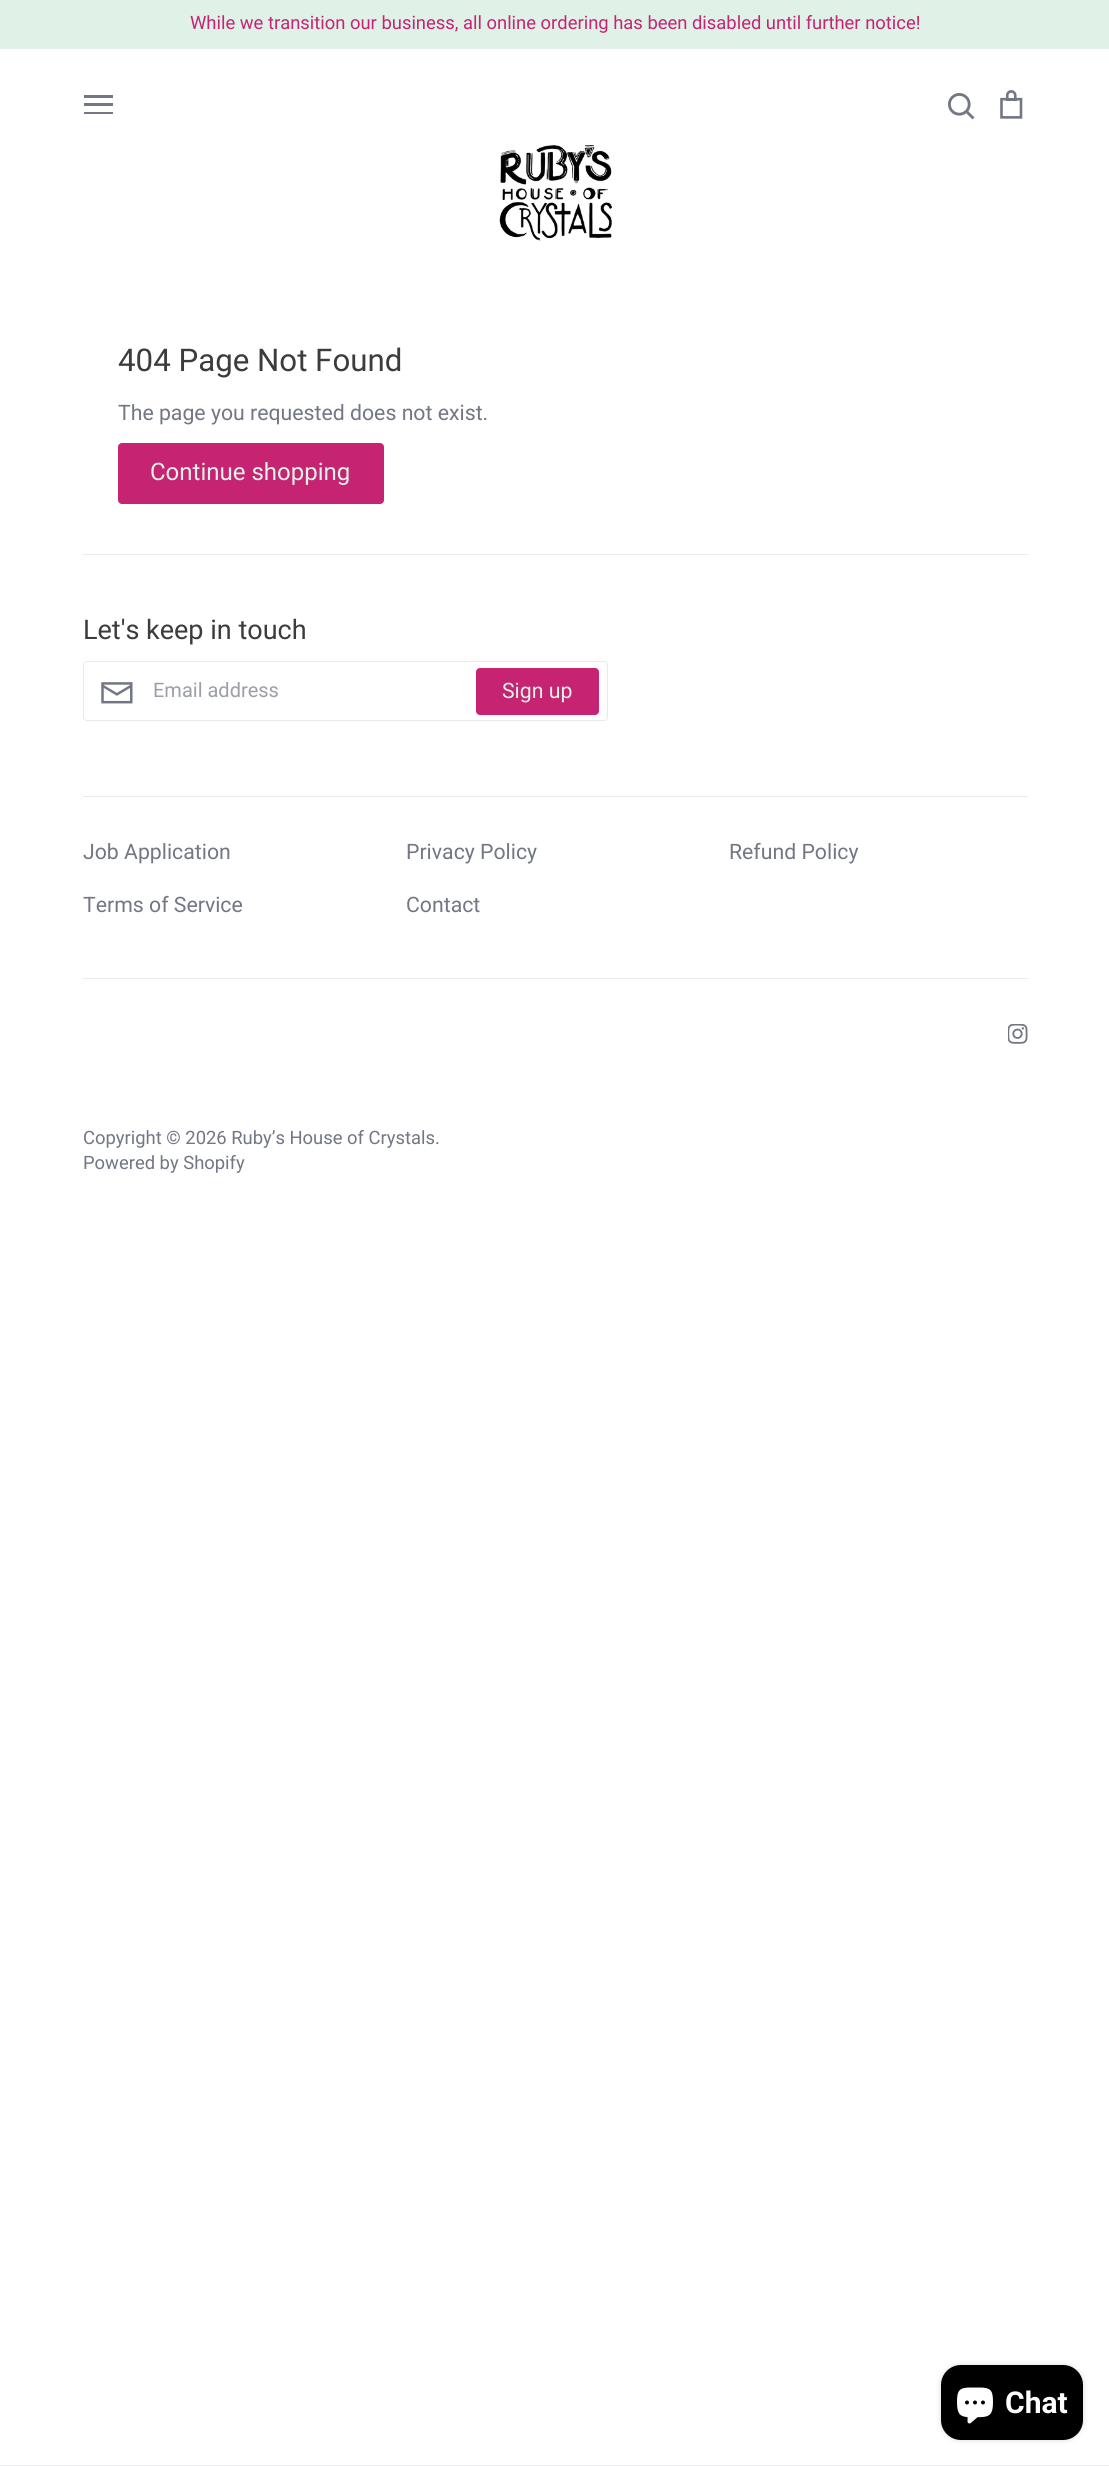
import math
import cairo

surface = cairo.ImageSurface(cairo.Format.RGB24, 1109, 2466)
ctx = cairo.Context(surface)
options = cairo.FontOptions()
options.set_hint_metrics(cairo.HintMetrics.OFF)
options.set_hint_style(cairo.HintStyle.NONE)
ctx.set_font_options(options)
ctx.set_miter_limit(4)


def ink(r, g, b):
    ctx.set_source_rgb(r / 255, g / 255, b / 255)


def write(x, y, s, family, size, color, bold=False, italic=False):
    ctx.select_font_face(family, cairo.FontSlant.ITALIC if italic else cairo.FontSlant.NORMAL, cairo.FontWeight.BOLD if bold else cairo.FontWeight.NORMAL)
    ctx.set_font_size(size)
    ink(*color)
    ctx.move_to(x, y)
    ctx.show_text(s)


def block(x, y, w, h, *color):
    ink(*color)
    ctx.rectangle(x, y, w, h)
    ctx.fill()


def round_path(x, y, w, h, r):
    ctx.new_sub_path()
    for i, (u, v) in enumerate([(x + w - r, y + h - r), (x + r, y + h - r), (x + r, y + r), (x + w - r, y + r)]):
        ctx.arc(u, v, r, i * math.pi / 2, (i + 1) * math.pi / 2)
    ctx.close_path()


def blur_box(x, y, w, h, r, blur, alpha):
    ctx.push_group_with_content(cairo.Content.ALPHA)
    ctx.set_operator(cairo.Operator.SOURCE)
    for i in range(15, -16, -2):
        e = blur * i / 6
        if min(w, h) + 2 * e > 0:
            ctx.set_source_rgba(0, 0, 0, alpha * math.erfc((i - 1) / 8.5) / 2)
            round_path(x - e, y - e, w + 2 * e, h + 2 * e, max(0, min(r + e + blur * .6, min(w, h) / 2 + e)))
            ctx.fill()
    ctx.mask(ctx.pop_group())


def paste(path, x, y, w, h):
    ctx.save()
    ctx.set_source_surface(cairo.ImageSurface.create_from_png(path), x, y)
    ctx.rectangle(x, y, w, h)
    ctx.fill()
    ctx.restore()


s1 = dict(family="Roboto", size=18.4, color=(198, 36, 115))
s2 = dict(family="Roboto", size=31.25, color=(60, 60, 60))
s3 = dict(family="Roboto", size=21.25, color=(114, 118, 133))
s4 = dict(family="Roboto", size=24, color=(224, 242, 232))
s5 = dict(family="Roboto", size=27, color=(60, 60, 60))
s6 = dict(family="Roboto", size=20, color=(156, 159, 170))
s7 = dict(family="Roboto", size=21.25, color=(224, 242, 232))
s8 = dict(family="Roboto", size=18.4, color=(114, 118, 133))
s9 = dict(family="Roboto", size=30, color=(255, 255, 255), bold=True)

ink(255, 255, 255)
ctx.paint()
block(0, 0, 1109, 49, 224, 242, 232)
write(190, 29, "While we transition our business, all online ordering has been disabled until further notice!", **s1)
block(84, 95, 29, 3, 114, 118, 133)
block(84, 103, 29, 3, 114, 118, 133)
block(84, 112, 29, 2, 114, 118, 133)
paste("pic1.png", 948, 93, 27, 27)
paste("pic2.png", 1000, 90, 23, 29)
paste("pic3.png", 499, 145, 114, 96)
block(0, 2465, 1109, 1, 234, 234, 237)
write(118, 371, "404 Page Not Found", **s2)
write(118, 420, "The page you requested does not exist.", **s3)
ink(198, 36, 115)
round_path(118.5, 443.5, 265, 60, 3.5)
ctx.fill_preserve()
ctx.set_line_width(1)
ctx.stroke()
write(150, 480, "Continue shopping", **s4)
block(83, 554, 945, 1, 234, 234, 237)
write(83, 639, "Let's keep in touch", **s5)
round_path(83.5, 661.5, 524, 59, 3.5)
ink(234, 234, 237)
ctx.stroke()
paste("pic4.png", 101, 682, 32, 22)
write(153, 697, "Email address", **s6)
ink(198, 36, 115)
round_path(476.5, 668.5, 122, 46, 3.5)
ctx.fill_preserve()
ctx.stroke()
write(502, 698, "Sign up", **s7)
block(83, 796, 945, 1, 234, 234, 237)
write(83, 859, "Job Application", **s3)
write(406, 859, "Privacy Policy", **s3)
write(729, 859, "Refund Policy", **s3)
write(83, 912, "Terms of Service", **s3)
write(406, 912, "Contact", **s3)
block(83, 978, 945, 1, 234, 234, 237)
paste("pic5.png", 1008, 1024, 20, 20)
write(83, 1144, "Copyright © 2026 Ruby’s House of Crystals.", **s8)
write(83, 1169, "Powered by Shopify", **s8)
ink(0, 0, 0)
blur_box(941, 2365, 142, 75, 20, 3, 0.15)
ink(0, 0, 0)
round_path(941, 2365, 142, 75, 20)
ctx.fill()
paste("pic6.png", 957, 2387, 36, 37)
write(1005, 2413, "Chat", **s9)
surface.write_to_png("screenshot.png")
